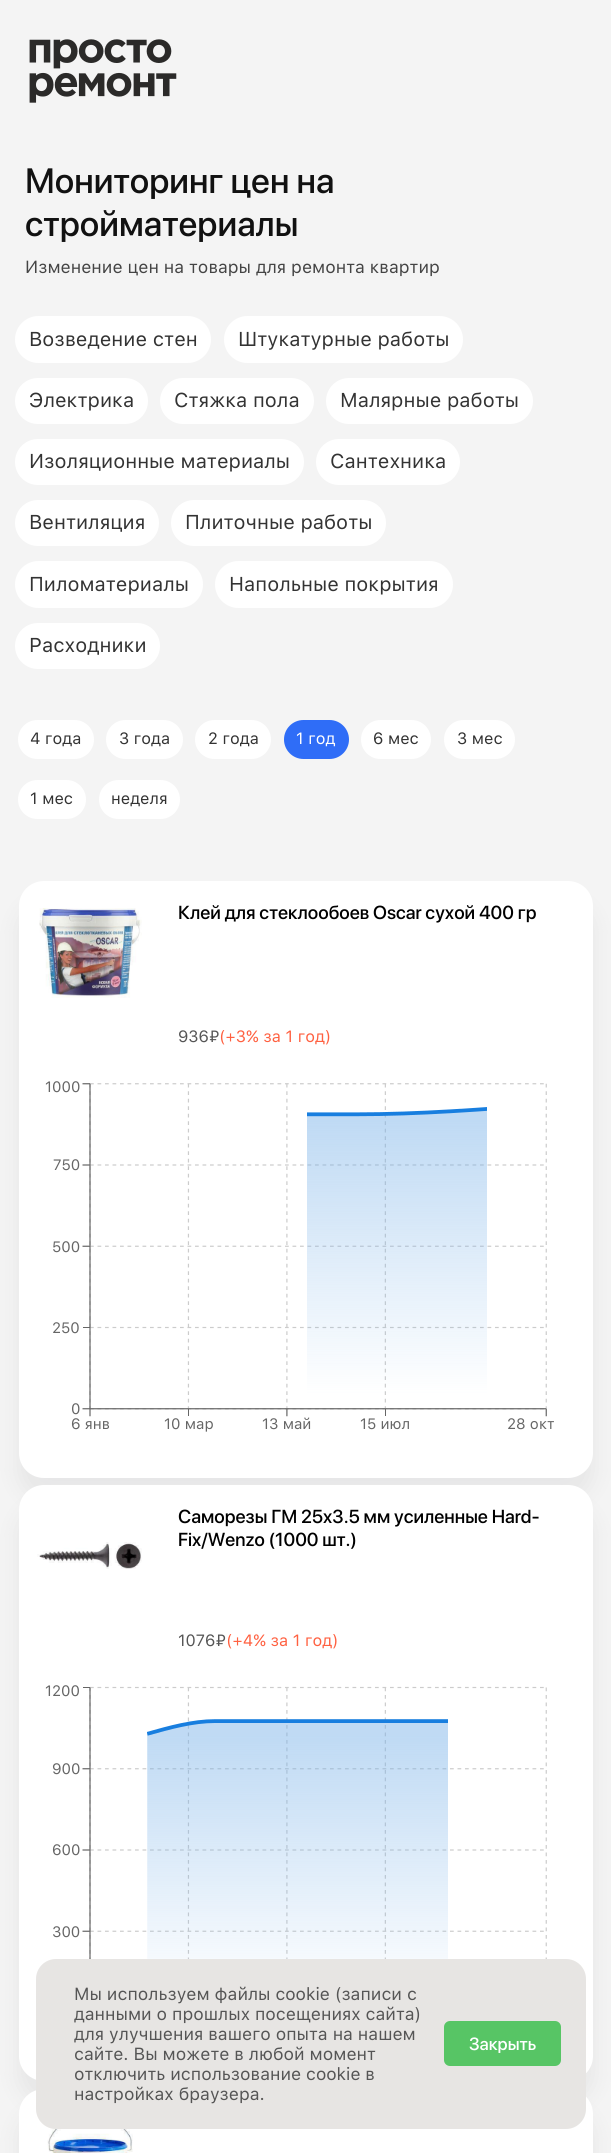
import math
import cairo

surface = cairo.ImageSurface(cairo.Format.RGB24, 611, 2153)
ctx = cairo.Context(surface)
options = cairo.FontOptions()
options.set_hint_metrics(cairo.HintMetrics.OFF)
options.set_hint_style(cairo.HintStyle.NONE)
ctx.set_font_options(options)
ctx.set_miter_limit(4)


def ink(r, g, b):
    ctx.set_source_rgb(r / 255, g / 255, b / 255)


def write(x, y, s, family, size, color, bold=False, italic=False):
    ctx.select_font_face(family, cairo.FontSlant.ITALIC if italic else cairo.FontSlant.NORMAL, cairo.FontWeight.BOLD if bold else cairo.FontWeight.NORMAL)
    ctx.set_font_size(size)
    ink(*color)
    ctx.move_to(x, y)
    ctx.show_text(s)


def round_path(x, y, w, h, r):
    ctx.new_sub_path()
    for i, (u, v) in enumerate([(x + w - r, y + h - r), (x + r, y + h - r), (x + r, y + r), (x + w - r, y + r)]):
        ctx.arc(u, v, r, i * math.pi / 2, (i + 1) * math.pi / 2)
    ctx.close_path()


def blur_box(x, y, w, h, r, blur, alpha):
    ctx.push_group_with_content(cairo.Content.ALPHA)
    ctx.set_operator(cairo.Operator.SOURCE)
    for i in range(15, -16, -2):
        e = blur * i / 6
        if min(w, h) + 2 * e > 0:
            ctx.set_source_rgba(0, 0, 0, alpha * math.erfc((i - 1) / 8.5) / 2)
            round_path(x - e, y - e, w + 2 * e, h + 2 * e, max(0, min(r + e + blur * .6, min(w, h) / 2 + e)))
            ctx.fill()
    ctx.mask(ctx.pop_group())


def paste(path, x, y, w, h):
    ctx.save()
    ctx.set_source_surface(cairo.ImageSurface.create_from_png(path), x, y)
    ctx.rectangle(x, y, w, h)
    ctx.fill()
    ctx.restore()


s1 = dict(family="SF Pro Display Medium", size=35, color=(17, 17, 17))
s2 = dict(family="SF Pro Text", size=17.5, color=(68, 68, 68))
s3 = dict(family="SF Pro Text", size=20, color=(51, 51, 51))
s4 = dict(family="SF Pro Text", size=16.25, color=(51, 51, 51))
s5 = dict(family="SF Pro Text", size=16.25, color=(255, 255, 255))
s6 = dict(family="SF Pro Display Medium", size=18.75, color=(0, 0, 0))
s7 = dict(family="SF Pro Text", size=16.25, color=(85, 85, 85))
s8 = dict(family="SF Pro Text", size=16.25, color=(255, 96, 64))
s9 = dict(family="SF Pro Text", size=15, color=(102, 102, 102))
s10 = dict(family="SF Pro Text", size=17.5, color=(85, 85, 85))
s11 = dict(family="SF Pro Display Medium", size=17.5, color=(255, 255, 255))

ink(244, 244, 244)
ctx.paint()
paste("pic1.png", 29, 39, 148, 64)
write(25, 193, "Мониторинг цен на", **s1)
write(25, 236, "стройматериалы", **s1)
write(25, 273, "Изменение цен на товары для ремонта квартир", **s2)
ink(255, 255, 255)
round_path(15, 316, 196, 47, 23.5)
ctx.fill()
write(29, 346, "Возведение стен", **s3)
ink(255, 255, 255)
round_path(224, 316, 239, 47, 23.5)
ctx.fill()
write(238, 346, "Штукатурные работы", **s3)
ink(255, 255, 255)
round_path(15, 378, 133, 46, 23)
ctx.fill()
write(29, 407, "Электрика", **s3)
ink(255, 255, 255)
round_path(160, 378, 154, 46, 23)
ctx.fill()
write(174, 407, "Стяжка пола", **s3)
ink(255, 255, 255)
round_path(326, 378, 207, 46, 23)
ctx.fill()
write(340, 407, "Малярные работы", **s3)
ink(255, 255, 255)
round_path(15, 439, 289, 46, 23)
ctx.fill()
write(29, 468, "Изоляционные материалы", **s3)
ink(255, 255, 255)
round_path(316, 439, 144, 46, 23)
ctx.fill()
write(330, 468, "Сантехника", **s3)
ink(255, 255, 255)
round_path(15, 500, 144, 46, 23)
ctx.fill()
write(29, 529, "Вентиляция", **s3)
ink(255, 255, 255)
round_path(171, 500, 215, 46, 23)
ctx.fill()
write(185, 529, "Плиточные работы", **s3)
ink(255, 255, 255)
round_path(15, 561, 188, 47, 23.5)
ctx.fill()
write(29, 591, "Пиломатериалы", **s3)
ink(255, 255, 255)
round_path(215, 561, 238, 47, 23.5)
ctx.fill()
write(229, 591, "Напольные покрытия", **s3)
ink(255, 255, 255)
round_path(15, 623, 145, 46, 23)
ctx.fill()
write(29, 652, "Расходники", **s3)
ink(255, 255, 255)
round_path(18, 720, 76, 39, 19.5)
ctx.fill()
write(30, 744, "4 года", **s4)
ink(255, 255, 255)
round_path(106, 720, 77, 39, 19.5)
ctx.fill()
write(119, 744, "3 года", **s4)
ink(255, 255, 255)
round_path(195, 720, 76, 39, 19.5)
ctx.fill()
write(208, 744, "2 года", **s4)
ink(47, 109, 247)
round_path(284, 720, 65, 39, 19.5)
ctx.fill()
write(296, 744, "1 год", **s5)
round_path(361, 720, 70, 39, 19.5)
ctx.fill()
write(373, 744, "6 мес", **s4)
ink(255, 255, 255)
round_path(444, 720, 71, 39, 19.5)
ctx.fill()
write(457, 744, "3 мес", **s4)
ink(255, 255, 255)
round_path(18, 780, 68, 39, 19.5)
ctx.fill()
write(30, 804, "1 мес", **s4)
ink(255, 255, 255)
round_path(99, 780, 81, 39, 19.5)
ctx.fill()
write(111, 804, "неделя", **s4)
ink(0, 0, 10)
blur_box(19, 903, 574, 596, 25, 12.5, 0.06)
ink(255, 255, 255)
round_path(19, 881, 574, 597, 25)
ctx.fill()
paste("pic2.png", 39, 908, 103, 90)
write(178, 919, "Клей для стеклообоев Oscar сухой 400 гр", **s6)
write(178, 1042, "936₽", **s7)
write(219, 1042, "(+3% за 1 год)", **s8)
write(45, 1092, "1000", **s9)
paste("pic3.png", 82, 1083, 465, 334)
write(53, 1170, "750", **s9)
write(52, 1252, "500", **s9)
write(52, 1333, "250", **s9)
write(71, 1414, "0", **s9)
write(71, 1429, "6 янв", **s9)
write(164, 1429, "10 мар", **s9)
write(262, 1429, "13 май", **s9)
write(360, 1429, "15 июл", **s9)
write(507, 1429, "28 окт", **s9)
ink(0, 0, 10)
blur_box(19, 1506, 574, 597, 25, 12.5, 0.06)
ink(255, 255, 255)
round_path(19, 1485, 574, 596, 25)
ctx.fill()
paste("pic4.png", 37, 1542, 105, 27)
write(178, 1523, "Саморезы ГМ 25x3.5 мм усиленные Hard-", **s6)
write(178, 1546, "Fix/Wenzo (1000 шт.)", **s6)
write(178, 1646, "1076₽", **s7)
write(226, 1646, "(+4% за 1 год)", **s8)
write(45, 1696, "1200", **s9)
paste("pic5.png", 82, 1686, 465, 273)
write(52, 1774, "900", **s9)
write(52, 1855, "600", **s9)
write(52, 1937, "300", **s9)
ink(0, 0, 10)
blur_box(19, 2110, 574, 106, 25, 12.5, 0.06)
ink(255, 255, 255)
round_path(19, 2089, 574, 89, 25)
ctx.fill()
paste("pic6.png", 47, 2126, 86, 27)
ink(231, 229, 227)
round_path(36, 1959, 550, 170, 20)
ctx.fill()
write(74, 2000, "Мы используем файлы cookie (записи с", **s10)
write(74, 2020, "данными о прошлых посещениях сайта)", **s10)
write(74, 2040, "для улучшения вашего опыта на нашем", **s10)
write(74, 2060, "сайте. Вы можете в любой момент", **s10)
write(74, 2080, "отключить использование cookie в", **s10)
write(74, 2100, "настройках браузера.", **s10)
ink(87, 197, 101)
round_path(444, 2021, 117, 45, 6)
ctx.fill()
write(469, 2050, "Закрыть", **s11)
surface.write_to_png("screenshot.png")
